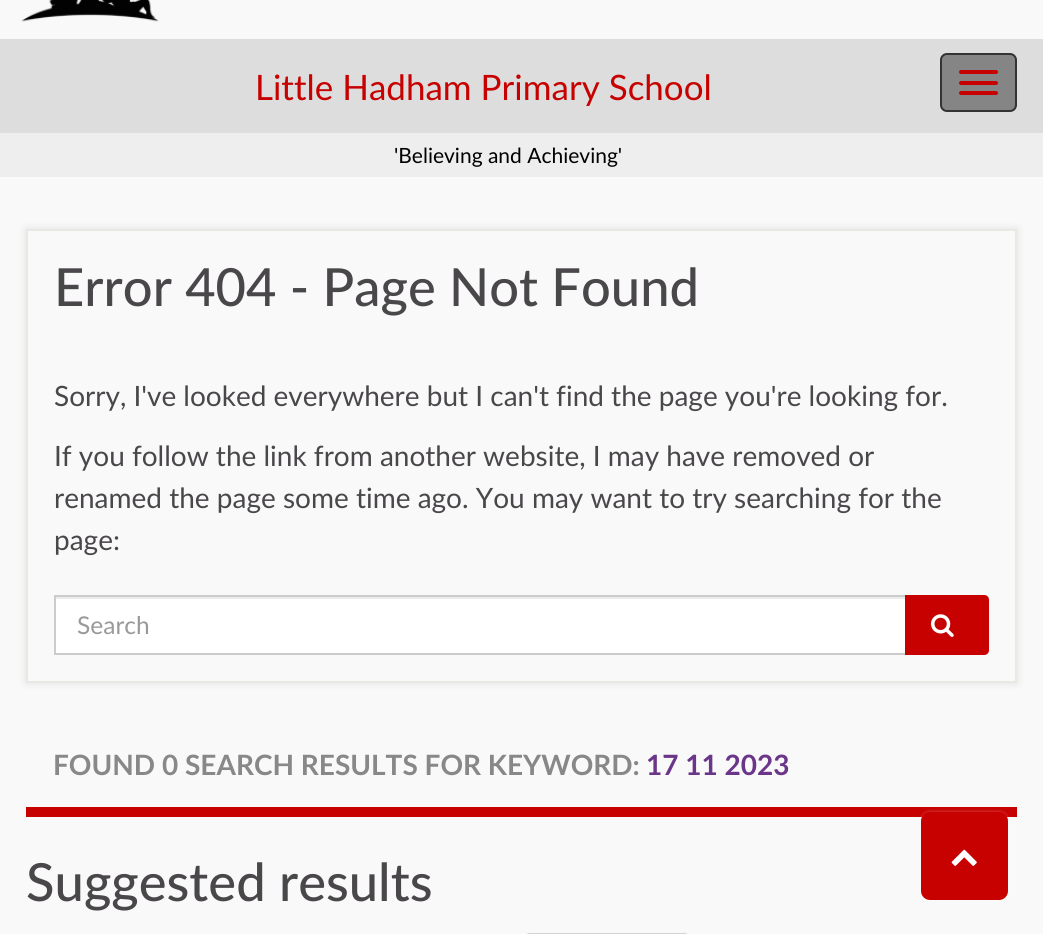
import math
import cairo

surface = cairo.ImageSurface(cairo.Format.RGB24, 1043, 934)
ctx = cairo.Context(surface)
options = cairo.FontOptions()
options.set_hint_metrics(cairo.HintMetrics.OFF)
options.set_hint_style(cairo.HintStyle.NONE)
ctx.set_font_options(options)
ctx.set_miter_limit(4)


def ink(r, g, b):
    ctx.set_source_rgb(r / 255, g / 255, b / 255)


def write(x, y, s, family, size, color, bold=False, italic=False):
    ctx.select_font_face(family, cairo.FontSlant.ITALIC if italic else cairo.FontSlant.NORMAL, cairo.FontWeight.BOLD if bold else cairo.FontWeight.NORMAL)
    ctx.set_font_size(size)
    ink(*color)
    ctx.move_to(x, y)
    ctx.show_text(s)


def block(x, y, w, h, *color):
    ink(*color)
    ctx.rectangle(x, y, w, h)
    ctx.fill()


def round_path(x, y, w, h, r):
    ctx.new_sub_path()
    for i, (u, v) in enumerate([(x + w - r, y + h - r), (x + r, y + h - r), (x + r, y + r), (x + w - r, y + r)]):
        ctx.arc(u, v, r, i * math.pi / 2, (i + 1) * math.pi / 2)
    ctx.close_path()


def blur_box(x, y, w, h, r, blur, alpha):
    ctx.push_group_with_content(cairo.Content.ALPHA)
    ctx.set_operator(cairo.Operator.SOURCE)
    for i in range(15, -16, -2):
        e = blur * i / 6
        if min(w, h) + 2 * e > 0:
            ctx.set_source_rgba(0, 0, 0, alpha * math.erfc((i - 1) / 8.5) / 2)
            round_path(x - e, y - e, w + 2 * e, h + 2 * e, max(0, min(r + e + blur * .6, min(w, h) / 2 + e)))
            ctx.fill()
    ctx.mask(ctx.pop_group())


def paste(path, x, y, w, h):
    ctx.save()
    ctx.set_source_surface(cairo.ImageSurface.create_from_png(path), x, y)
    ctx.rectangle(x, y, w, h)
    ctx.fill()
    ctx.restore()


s1 = dict(family="Lato", size=35, color=(199, 0, 0))
s2 = dict(family="Lato", size=21, color=(0, 0, 0))
s3 = dict(family="Lato Medium", size=52.5, color=(74, 71, 75))
s4 = dict(family="Lato", size=28, color=(74, 71, 75))
s5 = dict(family="Lato", size=24.5, color=(153, 153, 153))
s6 = dict(family="Lato", size=28, color=(136, 136, 136), bold=True)
s7 = dict(family="Lato", size=28, color=(107, 53, 137), bold=True)

ink(249, 249, 249)
ctx.paint()
paste("pic1.png", 21, 0, 138, 22)
block(0, 39, 1043, 94, 221, 221, 221)
write(255, 100, "Little Hadham Primary School", **s1)
ink(133, 133, 133)
round_path(941, 54, 75, 57, 6)
ctx.fill_preserve()
ink(51, 51, 51)
ctx.stroke()
ink(199, 0, 0)
round_path(959, 70, 39, 4, 2)
ctx.fill()
round_path(959, 81, 39, 4, 2)
ctx.fill()
round_path(959, 91, 39, 4, 2)
ctx.fill()
block(0, 133, 1043, 44, 238, 238, 238)
write(394, 163, "'Believing and Achieving'", **s2)
ink(0, 0, 0)
blur_box(26, 229, 991, 454, 0, 4.5, 0.1)
ink(249, 249, 249)
ctx.rectangle(27, 230, 989, 452)
ctx.fill_preserve()
ink(233, 232, 227)
ctx.stroke()
write(54, 306, "Error 404 - Page Not Found", **s3)
write(54, 406, "Sorry, I've looked everywhere but I can't find the page you're looking for.", **s4)
write(54, 466, "If you follow the link from another website, I may have removed or", **s4)
write(54, 508, "renamed the page some time ago. You may want to try searching for the", **s4)
write(54, 550, "page:", **s4)
block(56, 599, 849, 54, 255, 255, 255)
block(56, 597, 849, 2, 236, 236, 236)
ctx.rectangle(55, 596, 851, 58)
ink(204, 204, 204)
ctx.stroke()
write(77, 634, "Search", **s5)
ink(199, 0, 0)
ctx.new_path()
ctx.move_to(905, 595)
ctx.line_to(984, 595)
ctx.curve_to(987, 595, 989, 597, 989, 600)
ctx.line_to(989, 650)
ctx.curve_to(989, 653, 987, 655, 984, 655)
ctx.line_to(905, 655)
ctx.close_path()
ctx.fill()
paste("pic2.png", 931, 614, 23, 23)
block(26, 807, 991, 10, 199, 0, 0)
write(53, 775, "FOUND 0 SEARCH RESULTS FOR KEYWORD:", **s6)
write(646, 775, "17 11 2023", **s7)
write(26, 901, "Suggested results", **s3)
round_path(524, 934, 166, 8, 6)
ink(211, 211, 211)
ctx.stroke()
ink(255, 255, 255)
blur_box(921, 812, 87, 88, 9, 2, 0.3)
ink(199, 0, 0)
round_path(921, 812, 87, 88, 9)
ctx.fill()
paste("pic3.png", 951, 849, 26, 17)
surface.write_to_png("screenshot.png")
